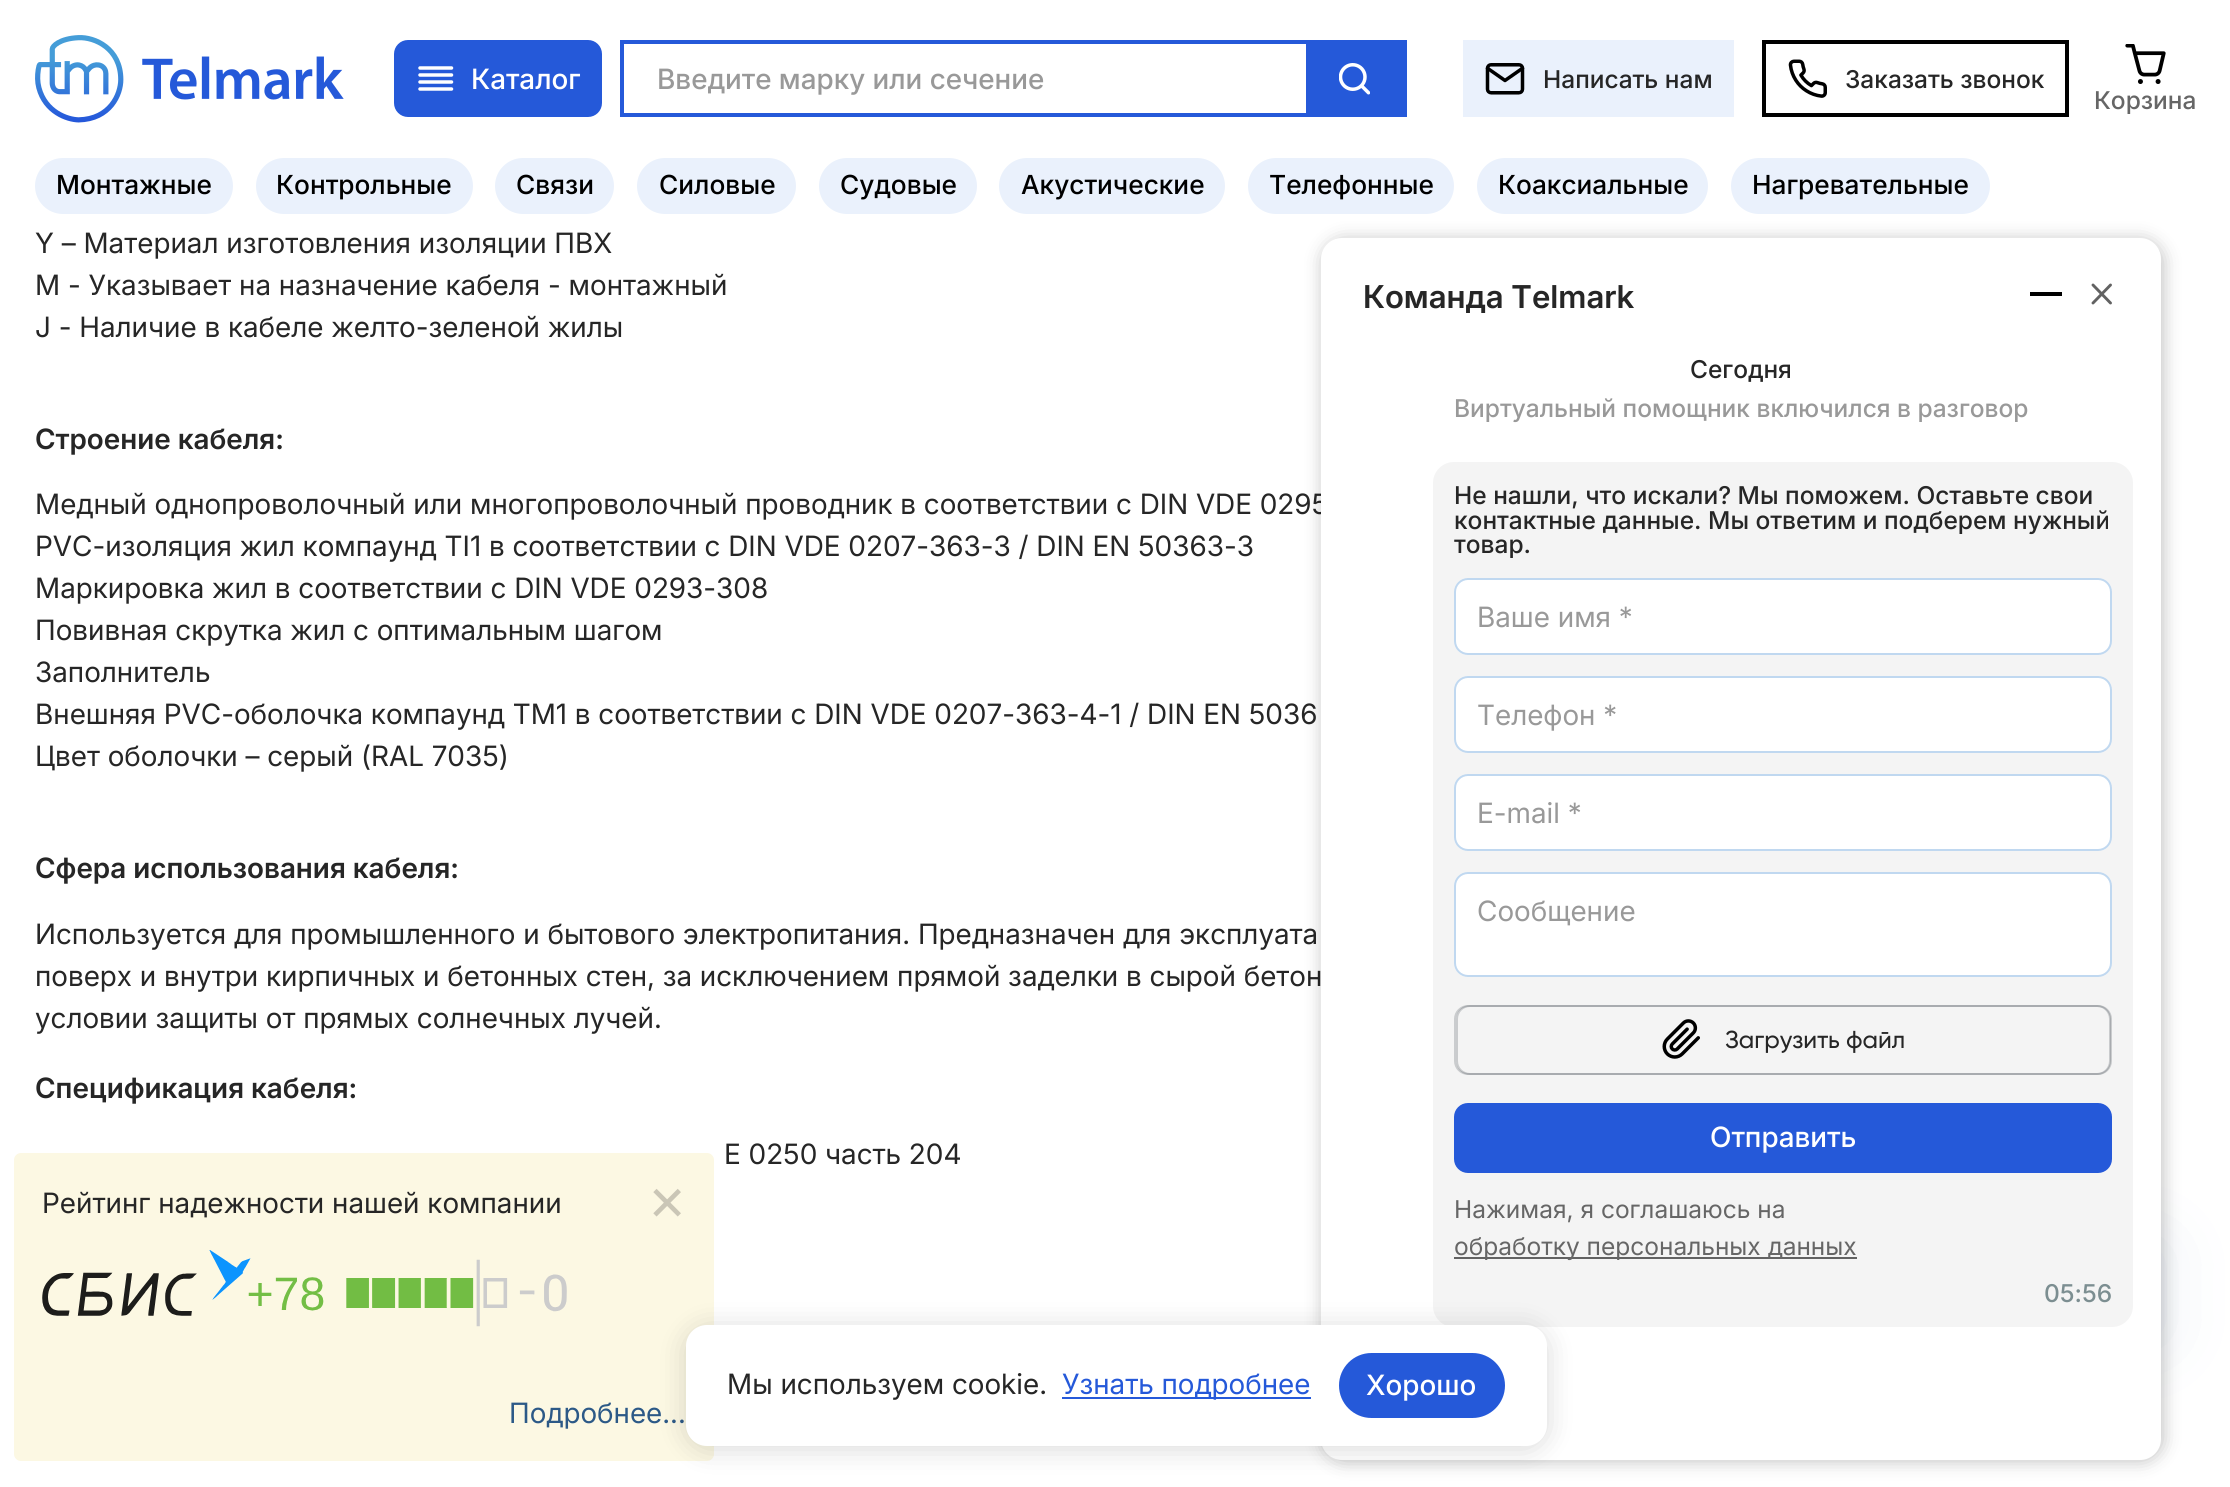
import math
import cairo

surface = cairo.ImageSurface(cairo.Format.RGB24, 2230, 1487)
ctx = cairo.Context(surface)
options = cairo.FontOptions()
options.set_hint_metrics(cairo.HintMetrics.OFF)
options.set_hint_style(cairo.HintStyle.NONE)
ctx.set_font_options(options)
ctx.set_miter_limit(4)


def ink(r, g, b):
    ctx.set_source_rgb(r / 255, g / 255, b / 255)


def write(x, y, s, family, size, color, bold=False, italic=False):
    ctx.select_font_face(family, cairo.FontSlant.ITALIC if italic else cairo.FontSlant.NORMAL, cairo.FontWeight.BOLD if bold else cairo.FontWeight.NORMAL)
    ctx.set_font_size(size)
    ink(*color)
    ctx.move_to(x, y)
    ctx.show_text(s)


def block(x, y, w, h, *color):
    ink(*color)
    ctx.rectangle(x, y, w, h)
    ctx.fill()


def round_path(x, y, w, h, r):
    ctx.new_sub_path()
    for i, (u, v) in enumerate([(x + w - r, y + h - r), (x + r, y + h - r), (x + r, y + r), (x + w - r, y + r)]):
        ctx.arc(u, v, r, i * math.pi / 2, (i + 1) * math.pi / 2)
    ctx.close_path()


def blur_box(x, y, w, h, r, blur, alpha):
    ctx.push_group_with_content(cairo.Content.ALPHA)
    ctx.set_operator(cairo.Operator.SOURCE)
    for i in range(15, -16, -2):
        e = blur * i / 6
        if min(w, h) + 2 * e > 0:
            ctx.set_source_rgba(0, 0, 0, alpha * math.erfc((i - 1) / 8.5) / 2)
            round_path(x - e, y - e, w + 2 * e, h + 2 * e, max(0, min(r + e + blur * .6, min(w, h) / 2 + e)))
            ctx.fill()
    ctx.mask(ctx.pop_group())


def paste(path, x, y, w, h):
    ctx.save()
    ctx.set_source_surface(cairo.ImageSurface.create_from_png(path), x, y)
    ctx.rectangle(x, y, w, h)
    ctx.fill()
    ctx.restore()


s1 = dict(family="Inter Medium", size=28, color=(255, 255, 255))
s2 = dict(family="Inter Medium", size=28, color=(153, 153, 153))
s3 = dict(family="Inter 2 Medium", size=24.5, color=(38, 38, 38))
s4 = dict(family="Inter 2 Medium", size=24.5, color=(102, 102, 102))
s5 = dict(family="Inter 2 Medium", size=26.25, color=(0, 0, 0))
s6 = dict(family="Inter", size=28, color=(38, 38, 38))
s7 = dict(family="Inter SemiBold", size=28, color=(38, 38, 38))
s8 = dict(family="Inter 2 SemiBold", size=31.5, color=(38, 38, 38))
s9 = dict(family="Inter 2 Medium", size=24.5, color=(153, 153, 153))
s10 = dict(family="Inter", size=28, color=(153, 153, 153))
s11 = dict(family="Gilroy Medium", size=24.5, color=(38, 38, 38))
s12 = dict(family="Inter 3", size=24.5, color=(102, 102, 102))
s13 = dict(family="Inter 2 Medium", size=24.5, color=(124, 142, 145))
s14 = dict(family="Inter 2", size=61, color=(202, 198, 182))
s15 = dict(family="Inter", size=28, color=(44, 89, 135))
s16 = dict(family="Inter", size=28, color=(37, 89, 217))

ink(255, 255, 255)
ctx.paint()
paste("pic1.png", 35, 35, 309, 88)
ink(37, 89, 217)
round_path(394, 40, 208, 77, 14)
ctx.fill()
ctx.new_path()
ctx.move_to(451.5, 75)
ctx.line_to(420, 75)
ctx.move_to(451.5, 68)
ctx.line_to(420, 68)
ctx.move_to(451.5, 82)
ctx.line_to(420, 82)
ctx.move_to(451.5, 89)
ctx.line_to(420, 89)
ink(255, 255, 255)
ctx.set_line_width(3.5)
ctx.set_line_cap(cairo.LineCap.ROUND)
ctx.set_line_join(cairo.LineJoin.ROUND)
ctx.stroke()
write(471, 89, "Каталог", **s1)
ctx.rectangle(622, 42, 783, 73)
ink(37, 89, 217)
ctx.set_line_width(4)
ctx.set_line_cap(cairo.LineCap.BUTT)
ctx.set_line_join(cairo.LineJoin.MITER)
ctx.stroke()
write(657, 89, "Введите марку или сечение", **s2)
block(1306, 44, 97, 69, 37, 89, 217)
paste("pic2.png", 1339, 63, 31, 32)
block(1463, 40, 271, 77, 234, 241, 252)
paste("pic3.png", 1485, 63, 40, 32)
write(1543, 88, "Написать нам", **s3)
ctx.rectangle(1764, 42, 303, 73)
ink(0, 0, 0)
ctx.stroke()
paste("pic4.png", 1788, 59, 39, 39)
write(1845, 88, "Заказать звонок", **s3)
paste("pic5.png", 2125, 44, 41, 40)
write(2094, 109, "Корзина", **s4)
ink(234, 241, 252)
round_path(35, 158, 198, 56, 28)
ctx.fill()
write(56, 194, "Монтажные", **s5)
ink(234, 241, 252)
round_path(256, 158, 217, 56, 28)
ctx.fill()
write(276, 194, "Контрольные", **s5)
ink(234, 241, 252)
round_path(495, 158, 119, 56, 28)
ctx.fill()
write(516, 194, "Связи", **s5)
ink(234, 241, 252)
round_path(637, 158, 159, 56, 28)
ctx.fill()
write(659, 194, "Силовые", **s5)
ink(234, 241, 252)
round_path(819, 158, 158, 56, 28)
ctx.fill()
write(840, 194, "Судовые", **s5)
ink(234, 241, 252)
round_path(999, 158, 226, 56, 28)
ctx.fill()
write(1021, 194, "Акустические", **s5)
ink(234, 241, 252)
round_path(1248, 158, 206, 56, 28)
ctx.fill()
write(1269, 194, "Телефонные", **s5)
ink(234, 241, 252)
round_path(1477, 158, 231, 56, 28)
ctx.fill()
write(1498, 194, "Коаксиальные", **s5)
ink(234, 241, 252)
round_path(1731, 158, 259, 56, 28)
ctx.fill()
write(1752, 194, "Нагревательные", **s5)
write(35, 253, "Y – Материал изготовления изоляции ПВХ", **s6)
write(35, 295, "M - Указывает на назначение кабеля - монтажный", **s6)
write(35, 337, "J - Наличие в кабеле желто-зеленой жилы", **s6)
write(35, 449, "Строение кабеля:", **s7)
write(35, 514, "Медный однопроволочный или многопроволочный проводник в соответствии с DIN VDE 0295", **s6)
write(35, 556, "PVC-изоляция жил компаунд TI1 в соответствии с DIN VDE 0207-363-3 / DIN EN 50363-3", **s6)
write(35, 598, "Маркировка жил в соответствии с DIN VDE 0293-308", **s6)
write(35, 640, "Повивная скрутка жил с оптимальным шагом", **s6)
write(35, 682, "Заполнитель", **s6)
write(35, 724, "Внешняя PVC-оболочка компаунд ТМ1 в соответствии с DIN VDE 0207-363-4-1 / DIN EN 5036", **s6)
write(35, 766, "Цвет оболочки – серый (RAL 7035)", **s6)
write(35, 878, "Сфера использования кабеля:", **s7)
write(35, 944, "Используется для промышленного и бытового электропитания. Предназначен для эксплуата", **s6)
write(35, 986, "поверх и внутри кирпичных и бетонных стен, за исключением прямой заделки в сырой бетон", **s6)
write(35, 1028, "условии защиты от прямых солнечных лучей.", **s6)
write(35, 1098, "Спецификация кабеля:", **s7)
write(724, 1164, "E 0250 часть 204", **s6)
ink(0, 0, 0)
blur_box(1323, 240, 840, 1221, 21, 9, 0.25)
ink(30, 73, 149)
blur_box(2072, 1248, 89, 89, 0, 35, 0.1)
ink(255, 255, 255)
round_path(1321, 238, 840, 1222, 21)
ctx.fill()
write(1363, 308, "Команда Telmark", **s8)
block(2030, 292, 32, 4, 0, 0, 0)
ctx.new_path()
ctx.move_to(2110.5, 285)
ctx.line_to(2093, 303)
ctx.move_to(2093, 285)
ctx.line_to(2110.5, 303)
ink(98, 98, 98)
ctx.set_line_width(2.9)
ctx.set_line_cap(cairo.LineCap.ROUND)
ctx.set_line_join(cairo.LineJoin.ROUND)
ctx.stroke()
write(1690, 378, "Сегодня", **s3)
write(1454, 417, "Виртуальный помощник включился в разговор", **s9)
ink(244, 244, 244)
round_path(1433, 462, 700, 865, 21)
ctx.fill()
write(1454, 504, "Не нашли, что искали? Мы поможем. Оставьте свои", **s3)
write(1454, 529, "контактные данные. Мы ответим и подберем нужный", **s3)
write(1454, 553, "товар.", **s3)
ink(255, 255, 255)
round_path(1454, 578, 658, 77, 14)
ctx.fill()
round_path(1455, 579, 656, 75, 13)
ctx.set_source_rgba(0.388, 0.624, 0.855, 0.4)
ctx.set_line_width(2)
ctx.set_line_cap(cairo.LineCap.BUTT)
ctx.set_line_join(cairo.LineJoin.MITER)
ctx.stroke()
write(1477, 627, "Ваше имя *", **s10)
ink(255, 255, 255)
round_path(1454, 676, 658, 77, 14)
ctx.fill()
round_path(1455, 677, 656, 75, 13)
ctx.set_source_rgba(0.388, 0.624, 0.855, 0.4)
ctx.stroke()
write(1477, 725, "Телефон *", **s10)
ink(255, 255, 255)
round_path(1454, 774, 658, 77, 14)
ctx.fill()
round_path(1455, 775, 656, 75, 13)
ctx.set_source_rgba(0.388, 0.624, 0.855, 0.4)
ctx.stroke()
write(1477, 823, "E-mail *", **s10)
ink(255, 255, 255)
round_path(1454, 872, 658, 105, 14)
ctx.fill()
round_path(1455, 873, 656, 103, 13)
ctx.set_source_rgba(0.388, 0.624, 0.855, 0.4)
ctx.stroke()
write(1477, 921, "Сообщение", **s10)
round_path(1455, 1006, 656, 68, 13)
ink(202, 204, 206)
ctx.stroke()
round_path(1457, 1006, 653, 68, 13)
ctx.set_source_rgba(0.133, 0.169, 0.204, 0.2)
ctx.stroke()
paste("pic6.png", 1662, 1019, 38, 40)
write(1725, 1048, "Загрузить файл", **s11)
ink(37, 89, 217)
round_path(1454, 1103, 658, 70, 14)
ctx.fill()
write(1710, 1147, "Отправить", **s1)
write(1454, 1218, "Нажимая, я соглашаюсь на", **s12)
block(1454, 1257, 403, 2, 98, 98, 98)
write(1454, 1255, "обработку персональных данных", **s12)
write(2044, 1302, "05:56", **s13)
ink(252, 248, 227)
round_path(14, 1153, 700, 308, 7)
ctx.fill()
write(42, 1213, "Рейтинг надежности нашей компании", **s6)
write(648, 1220, "×", **s14)
paste("pic7.png", 42, 1250, 525, 77)
write(509, 1423, "Подробнее...", **s15)
ink(0, 0, 0)
blur_box(686, 1328, 861, 121, 21, 14, 0.15)
ink(255, 255, 255)
round_path(686, 1325, 861, 121, 21)
ctx.fill()
write(727, 1394, "Мы используем cookie.", **s6)
block(1062, 1397, 249, 2, 37, 89, 217)
write(1062, 1394, "Узнать подробнее", **s16)
round_path(1339, 1353, 166, 65, 32.5)
ctx.fill()
write(1366, 1395, "Хорошо", **s1)
surface.write_to_png("screenshot.png")
